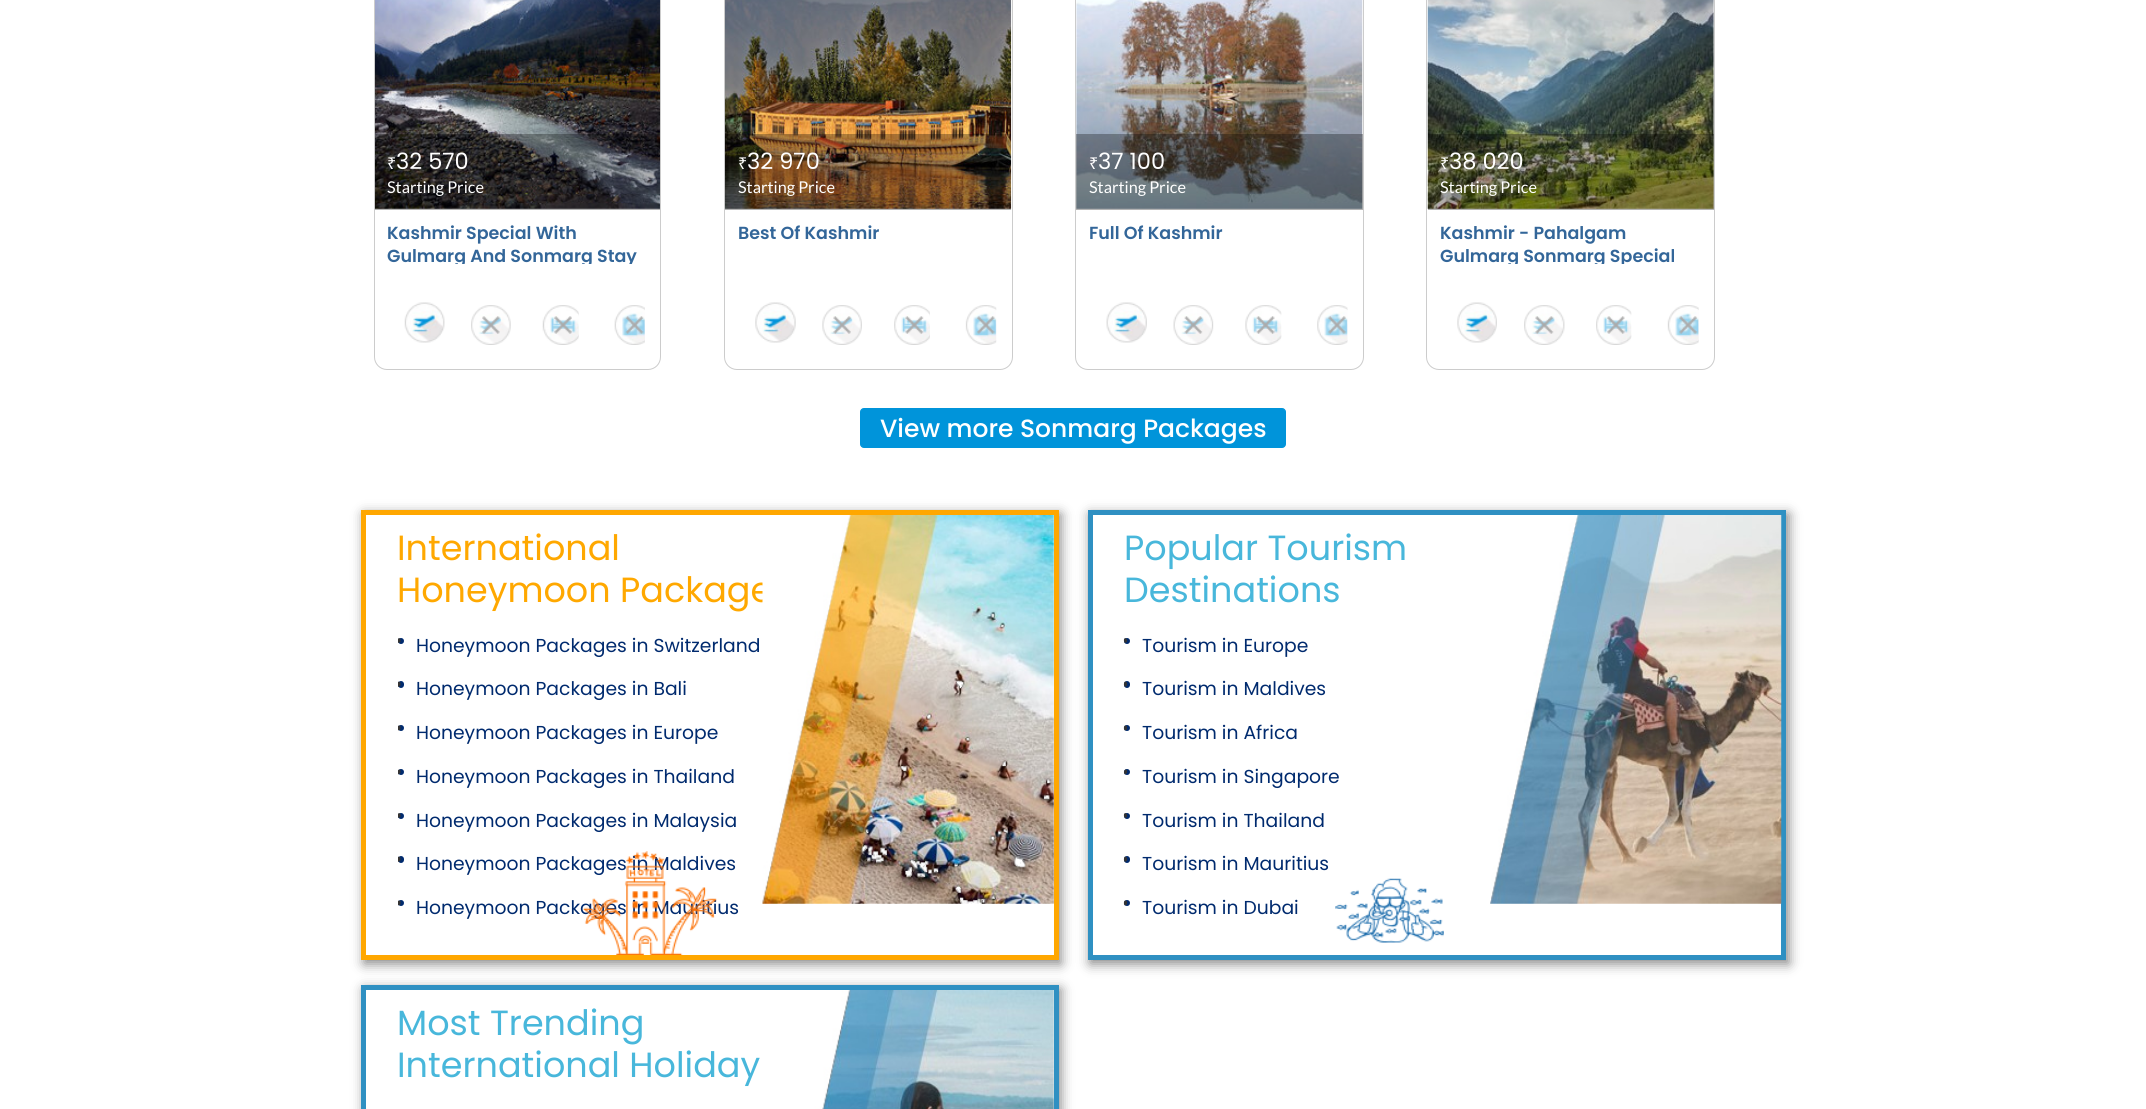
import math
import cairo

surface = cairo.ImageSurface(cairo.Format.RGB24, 2146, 1109)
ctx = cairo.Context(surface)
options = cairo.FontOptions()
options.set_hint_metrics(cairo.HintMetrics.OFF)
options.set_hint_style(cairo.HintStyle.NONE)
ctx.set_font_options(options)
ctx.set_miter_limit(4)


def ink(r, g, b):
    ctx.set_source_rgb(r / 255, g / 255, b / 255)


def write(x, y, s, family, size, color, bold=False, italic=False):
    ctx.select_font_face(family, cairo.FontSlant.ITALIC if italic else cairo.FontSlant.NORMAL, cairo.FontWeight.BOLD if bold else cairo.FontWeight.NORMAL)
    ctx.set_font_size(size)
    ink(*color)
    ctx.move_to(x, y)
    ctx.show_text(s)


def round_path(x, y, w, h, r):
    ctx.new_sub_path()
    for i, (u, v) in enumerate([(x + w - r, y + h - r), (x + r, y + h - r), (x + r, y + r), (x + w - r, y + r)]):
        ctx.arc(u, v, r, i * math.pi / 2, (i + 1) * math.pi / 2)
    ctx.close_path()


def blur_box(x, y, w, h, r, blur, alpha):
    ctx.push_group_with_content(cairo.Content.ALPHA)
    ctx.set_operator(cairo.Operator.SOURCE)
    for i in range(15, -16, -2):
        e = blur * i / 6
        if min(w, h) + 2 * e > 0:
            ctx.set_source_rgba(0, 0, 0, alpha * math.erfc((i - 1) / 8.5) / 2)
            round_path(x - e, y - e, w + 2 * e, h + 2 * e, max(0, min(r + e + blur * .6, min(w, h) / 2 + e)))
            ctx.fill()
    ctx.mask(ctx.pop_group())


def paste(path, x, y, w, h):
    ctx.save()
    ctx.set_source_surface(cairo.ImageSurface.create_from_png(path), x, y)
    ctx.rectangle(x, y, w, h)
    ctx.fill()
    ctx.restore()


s1 = dict(family="Noto Sans", size=16.25, color=(255, 255, 255))
s2 = dict(family="Poppins", size=22.5, color=(255, 255, 255))
s3 = dict(family="Lato", size=16.25, color=(255, 255, 255))
s4 = dict(family="Poppins SemiBold", size=17.5, color=(51, 102, 153))
s5 = dict(family="Poppins Medium", size=25, color=(255, 255, 255))
s6 = dict(family="Poppins", size=35, color=(255, 168, 0))
s7 = dict(family="Poppins", size=18.75, color=(0, 42, 110))
s8 = dict(family="Poppins", size=35, color=(72, 183, 219))

ink(255, 255, 255)
ctx.paint()
round_path(374.5, -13.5, 286, 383, 12.5)
ink(204, 204, 204)
ctx.set_line_width(1)
ctx.stroke()
paste("pic1.png", 375, 0, 285, 209)
ctx.set_source_rgba(0, 0, 0, 0.3)
ctx.rectangle(375, 134, 285, 76)
ctx.fill()
write(387, 169, "₹", **s1)
write(396, 169, "32 570", **s2)
write(387, 193, "Starting Price", **s3)
write(387, 239, "Kashmir Special With", **s4)
ctx.save()
ctx.rectangle(375, 209, 285, 55)
ctx.clip()
write(387, 262, "Gulmarg And Sonmarg Stay", **s4)
ctx.restore()
paste("pic2.png", 404, 302, 41, 41)
paste("pic3.png", 471, 305, 40, 40)
paste("pic4.png", 542, 305, 37, 40)
paste("pic5.png", 614, 305, 31, 40)
round_path(724.5, -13.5, 288, 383, 12.5)
ink(204, 204, 204)
ctx.stroke()
paste("pic6.png", 725, 0, 287, 209)
ctx.set_source_rgba(0, 0, 0, 0.3)
ctx.rectangle(725, 134, 286, 76)
ctx.fill()
write(738, 169, "₹", **s1)
write(747, 169, "32 970", **s2)
write(738, 193, "Starting Price", **s3)
write(738, 239, "Best Of Kashmir", **s4)
paste("pic7.png", 755, 302, 41, 41)
paste("pic8.png", 822, 305, 40, 40)
paste("pic9.png", 894, 305, 36, 40)
paste("pic10.png", 965, 305, 32, 40)
round_path(1075.5, -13.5, 288, 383, 12.5)
ink(204, 204, 204)
ctx.stroke()
paste("pic11.png", 1076, 0, 287, 209)
ctx.set_source_rgba(0, 0, 0, 0.3)
ctx.rectangle(1076, 134, 287, 76)
ctx.fill()
write(1089, 169, "₹", **s1)
write(1098, 169, "37 100", **s2)
write(1089, 193, "Starting Price", **s3)
write(1089, 239, "Full Of Kashmir", **s4)
paste("pic12.png", 1106, 302, 41, 41)
paste("pic13.png", 1173, 305, 41, 40)
paste("pic14.png", 1245, 305, 37, 40)
paste("pic15.png", 1317, 305, 31, 40)
round_path(1426.5, -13.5, 288, 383, 12.5)
ink(204, 204, 204)
ctx.stroke()
paste("pic16.png", 1427, 0, 287, 209)
ctx.set_source_rgba(0, 0, 0, 0.3)
ctx.rectangle(1428, 134, 286, 76)
ctx.fill()
write(1440, 169, "₹", **s1)
write(1449, 169, "38 020", **s2)
write(1440, 193, "Starting Price", **s3)
write(1440, 239, "Kashmir - Pahalgam", **s4)
ctx.save()
ctx.rectangle(1428, 209, 286, 55)
ctx.clip()
write(1440, 262, "Gulmarg Sonmarg Special", **s4)
ctx.restore()
paste("pic17.png", 1457, 302, 40, 41)
paste("pic18.png", 1524, 305, 41, 40)
paste("pic19.png", 1596, 305, 36, 40)
paste("pic20.png", 1667, 305, 32, 40)
ink(0, 148, 218)
round_path(860.5, 408.5, 425, 39, 3.5)
ctx.fill_preserve()
ctx.stroke()
write(880, 437, "View more Sonmarg Packages", **s5)
ink(136, 136, 136)
blur_box(364, 514, 697, 450, 0, 6, 1)
ink(255, 255, 255)
ctx.rectangle(363.5, 512.5, 693, 445)
ctx.fill_preserve()
ink(255, 167, 0)
ctx.set_line_width(5)
ctx.stroke()
write(397, 560, "International", **s6)
write(397, 602, "Honeymoon Package", **s6)
paste("pic21.png", 762, 515, 292, 389)
ink(0, 42, 110)
ctx.arc(401, 641, 3, 0, 2 * math.pi)
ctx.fill()
ctx.save()
ctx.rectangle(398, 629, 625, 309)
ctx.clip()
ink(51, 51, 51)
ctx.new_path()
ctx.move_to(397.5, 641)
ctx.curve_to(397.5, 639.5, 398, 638.5, 399, 638)
ctx.line_to(400.5, 639)
ctx.line_to(400.5, 642)
ctx.line_to(398.5, 643)
ctx.curve_to(398, 642.5, 397.5, 641.5, 397.5, 641)
ctx.close_path()
ctx.fill()
ctx.restore()
write(416, 652, "Honeymoon Packages in Switzerland", **s7)
round_path(398, 681, 6, 7, 3)
ctx.fill()
ctx.save()
ctx.rectangle(398, 629, 625, 309)
ctx.clip()
ink(51, 51, 51)
ctx.new_path()
ctx.move_to(398.5, 681.5)
ctx.line_to(400.5, 682.5)
ctx.line_to(400.5, 685.5)
ctx.line_to(398.5, 687)
ctx.curve_to(397, 685.5, 397, 683, 398.5, 681.5)
ctx.close_path()
ctx.fill()
ctx.restore()
write(416, 695, "Honeymoon Packages in Bali", **s7)
ctx.new_path()
ctx.arc(401, 728, 3, 0, 2 * math.pi)
ctx.fill()
ctx.save()
ctx.rectangle(398, 629, 625, 309)
ctx.clip()
ink(51, 51, 51)
ctx.new_path()
ctx.move_to(397.5, 728)
ctx.curve_to(397.5, 727, 398, 726, 398.5, 725.5)
ctx.line_to(400.5, 726)
ctx.line_to(400.5, 729.5)
ctx.line_to(398.5, 730.5)
ctx.curve_to(398, 730, 397.5, 729, 397.5, 728)
ctx.close_path()
ctx.fill()
ctx.restore()
write(416, 739, "Honeymoon Packages in Europe", **s7)
ctx.new_path()
ctx.arc(401, 772, 3, 0, 2 * math.pi)
ctx.fill()
ctx.save()
ctx.rectangle(398, 629, 625, 309)
ctx.clip()
ink(51, 51, 51)
ctx.new_path()
ctx.move_to(397.5, 772)
ctx.curve_to(397.5, 771, 398, 770, 399, 769.5)
ctx.line_to(400.5, 770)
ctx.line_to(400.5, 773)
ctx.line_to(398.5, 774.5)
ctx.curve_to(398, 774, 397.5, 773, 397.5, 772)
ctx.close_path()
ctx.fill()
ctx.restore()
write(416, 783, "Honeymoon Packages in Thailand", **s7)
ctx.new_path()
ctx.arc(401, 816, 3, 0, 2 * math.pi)
ctx.fill()
ctx.save()
ctx.rectangle(398, 629, 625, 309)
ctx.clip()
ink(51, 51, 51)
ctx.new_path()
ctx.move_to(397.5, 816)
ctx.curve_to(397.5, 814.5, 398, 813.5, 399, 813)
ctx.line_to(400.5, 814)
ctx.line_to(400.5, 817)
ctx.line_to(398.5, 818)
ctx.curve_to(398, 817.5, 397.5, 816.5, 397.5, 816)
ctx.close_path()
ctx.fill()
ctx.restore()
write(416, 827, "Honeymoon Packages in Malaysia", **s7)
round_path(398, 856, 6, 7, 3)
ctx.fill()
ctx.save()
ctx.rectangle(398, 629, 625, 309)
ctx.clip()
ink(51, 51, 51)
ctx.new_path()
ctx.move_to(398.5, 856.5)
ctx.line_to(400.5, 857.5)
ctx.line_to(400.5, 860.5)
ctx.line_to(398.5, 862)
ctx.curve_to(397, 860.5, 397, 858, 398.5, 856.5)
ctx.close_path()
ctx.fill()
ctx.restore()
write(416, 870, "Honeymoon Packages in Maldives", **s7)
ctx.new_path()
ctx.arc(401, 903, 3, 0, 2 * math.pi)
ctx.fill()
ctx.save()
ctx.rectangle(398, 629, 625, 309)
ctx.clip()
ink(51, 51, 51)
ctx.new_path()
ctx.move_to(397.5, 903)
ctx.curve_to(397.5, 902, 398, 901, 398.5, 900.5)
ctx.line_to(400.5, 901)
ctx.line_to(400.5, 904.5)
ctx.line_to(398.5, 905.5)
ctx.curve_to(398, 905, 397.5, 904, 397.5, 903)
ctx.close_path()
ctx.fill()
ctx.restore()
write(416, 914, "Honeymoon Packages in Mauritius", **s7)
paste("pic22.png", 583, 851, 134, 104)
ctx.save()
ctx.set_fill_rule(cairo.FillRule.EVEN_ODD)
ctx.new_path()
ctx.move_to(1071, 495)
ctx.line_to(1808, 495)
ctx.line_to(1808, 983)
ctx.line_to(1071, 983)
ctx.close_path()
ctx.move_to(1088, 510)
ctx.line_to(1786, 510)
ctx.line_to(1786, 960)
ctx.line_to(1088, 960)
ctx.close_path()
ctx.clip()
ink(136, 136, 136)
blur_box(1090, 514, 699, 450, 0, 6, 1)
ctx.restore()
ctx.rectangle(1090.5, 512.5, 693, 445)
ink(47, 144, 194)
ctx.stroke()
write(1124, 560, "Popular Tourism", **s8)
write(1124, 602, "Destinations", **s8)
paste("pic23.png", 1490, 515, 292, 389)
ink(0, 42, 110)
ctx.arc(1127, 641, 3, 0, 2 * math.pi)
ctx.fill()
ink(51, 51, 51)
ctx.new_path()
ctx.move_to(1125, 638)
ctx.line_to(1127, 639)
ctx.line_to(1127, 642)
ctx.line_to(1125, 643)
ctx.curve_to(1123.5, 641.5, 1123.5, 639, 1125, 638)
ctx.close_path()
ctx.fill()
write(1142, 652, "Tourism in Europe", **s7)
round_path(1124, 681, 6, 7, 3)
ctx.fill()
ink(51, 51, 51)
ctx.new_path()
ctx.move_to(1125, 681.5)
ctx.line_to(1127, 682.5)
ctx.line_to(1127, 685.5)
ctx.line_to(1125, 687)
ctx.curve_to(1123.5, 685.5, 1123.5, 683, 1125, 681.5)
ctx.close_path()
ctx.fill()
write(1142, 695, "Tourism in Maldives", **s7)
ctx.new_path()
ctx.arc(1127, 728, 3, 0, 2 * math.pi)
ctx.fill()
ink(51, 51, 51)
ctx.new_path()
ctx.move_to(1125, 725.5)
ctx.line_to(1127, 726)
ctx.line_to(1127, 729.5)
ctx.line_to(1125, 730.5)
ctx.curve_to(1123.5, 729.5, 1123.5, 726.5, 1125, 725.5)
ctx.close_path()
ctx.fill()
write(1142, 739, "Tourism in Africa", **s7)
ctx.new_path()
ctx.arc(1127, 772, 3, 0, 2 * math.pi)
ctx.fill()
ink(51, 51, 51)
ctx.new_path()
ctx.move_to(1125.5, 769.5)
ctx.line_to(1127, 770)
ctx.line_to(1127, 773)
ctx.line_to(1125, 774.5)
ctx.curve_to(1123.5, 773, 1123.5, 770.5, 1125.5, 769.5)
ctx.close_path()
ctx.fill()
write(1142, 783, "Tourism in Singapore", **s7)
ctx.new_path()
ctx.arc(1127, 816, 3, 0, 2 * math.pi)
ctx.fill()
ink(51, 51, 51)
ctx.new_path()
ctx.move_to(1125, 813)
ctx.line_to(1127, 814)
ctx.line_to(1127, 817)
ctx.line_to(1125, 818)
ctx.curve_to(1123.5, 816.5, 1123.5, 814, 1125, 813)
ctx.close_path()
ctx.fill()
write(1142, 827, "Tourism in Thailand", **s7)
round_path(1124, 856, 6, 7, 3)
ctx.fill()
ink(51, 51, 51)
ctx.new_path()
ctx.move_to(1125, 856.5)
ctx.line_to(1127, 857.5)
ctx.line_to(1127, 860.5)
ctx.line_to(1125, 862)
ctx.curve_to(1123.5, 860.5, 1123.5, 858, 1125, 856.5)
ctx.close_path()
ctx.fill()
write(1142, 870, "Tourism in Mauritius", **s7)
ctx.new_path()
ctx.arc(1127, 903, 3, 0, 2 * math.pi)
ctx.fill()
ink(51, 51, 51)
ctx.new_path()
ctx.move_to(1125, 900.5)
ctx.line_to(1127, 901)
ctx.line_to(1127, 904.5)
ctx.line_to(1125, 905.5)
ctx.curve_to(1123.5, 904.5, 1123.5, 901.5, 1125, 900.5)
ctx.close_path()
ctx.fill()
write(1142, 914, "Tourism in Dubai", **s7)
paste("pic24.png", 1335, 878, 109, 65)
ink(136, 136, 136)
blur_box(364, 989, 697, 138, 0, 6, 1)
ink(255, 255, 255)
ctx.rectangle(363.5, 987.5, 693, 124)
ctx.fill_preserve()
ink(47, 144, 194)
ctx.stroke()
write(397, 1035, "Most Trending", **s8)
write(397, 1077, "International Holiday", **s8)
paste("pic25.png", 762, 990, 292, 119)
surface.write_to_png("screenshot.png")
